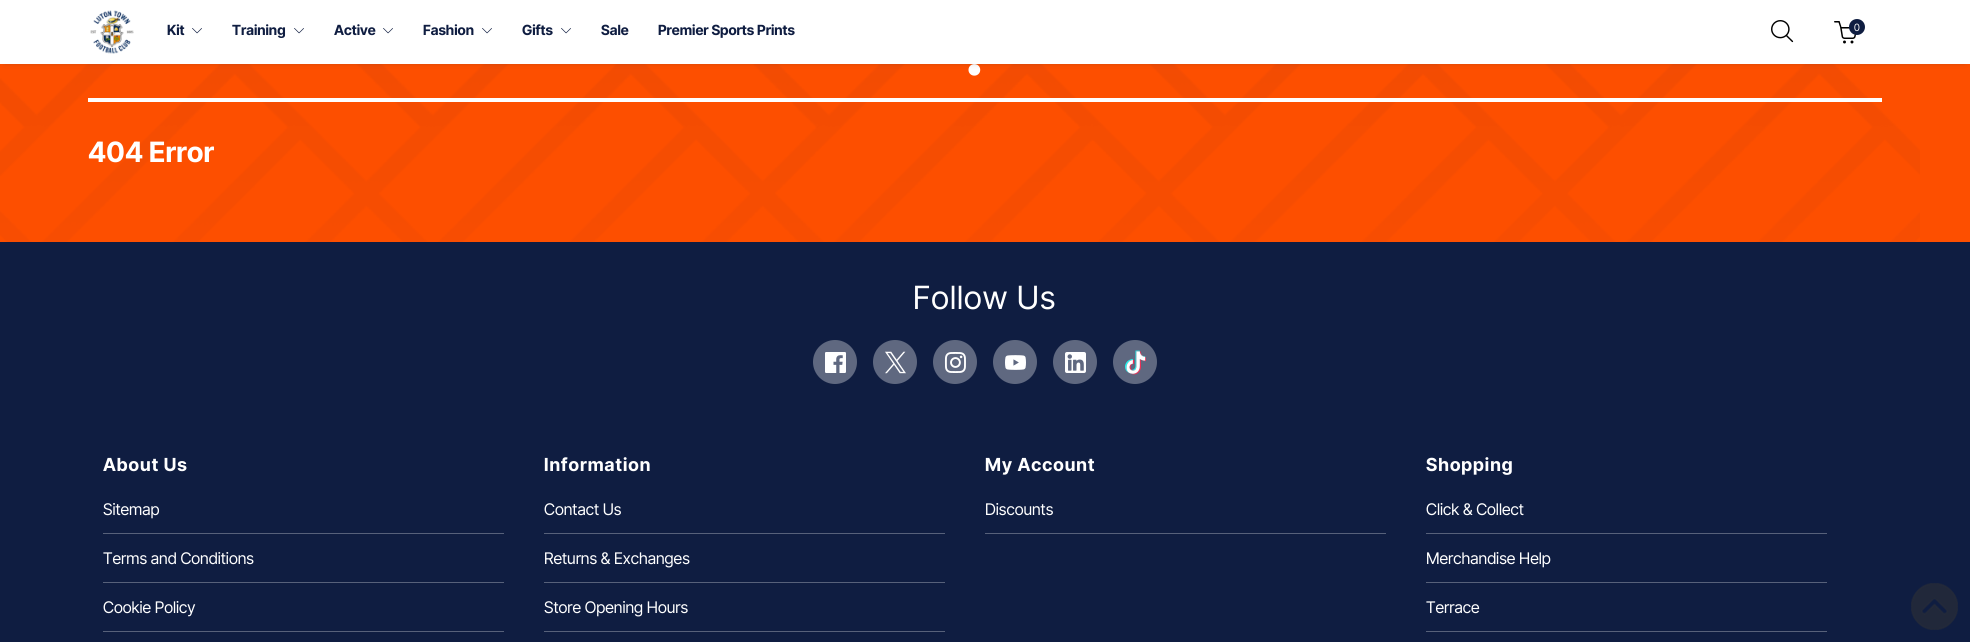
import math
import cairo

surface = cairo.ImageSurface(cairo.Format.RGB24, 1970, 642)
ctx = cairo.Context(surface)
options = cairo.FontOptions()
options.set_hint_metrics(cairo.HintMetrics.OFF)
options.set_hint_style(cairo.HintStyle.NONE)
ctx.set_font_options(options)
ctx.set_miter_limit(4)


def ink(r, g, b):
    ctx.set_source_rgb(r / 255, g / 255, b / 255)


def write(x, y, s, family, size, color, bold=False, italic=False):
    ctx.select_font_face(family, cairo.FontSlant.ITALIC if italic else cairo.FontSlant.NORMAL, cairo.FontWeight.BOLD if bold else cairo.FontWeight.NORMAL)
    ctx.set_font_size(size)
    ink(*color)
    ctx.move_to(x, y)
    ctx.show_text(s)


def write_spaced(x, y, s, letter, word):
    ctx.move_to(x, y)
    for ch in s:
        ctx.show_text(ch)
        ctx.rel_move_to(letter + word * (ch == ' '), 0)


def block(x, y, w, h, *color):
    ink(*color)
    ctx.rectangle(x, y, w, h)
    ctx.fill()


def round_path(x, y, w, h, r):
    ctx.new_sub_path()
    for i, (u, v) in enumerate([(x + w - r, y + h - r), (x + r, y + h - r), (x + r, y + r), (x + w - r, y + r)]):
        ctx.arc(u, v, r, i * math.pi / 2, (i + 1) * math.pi / 2)
    ctx.close_path()


def blur_box(x, y, w, h, r, blur, alpha):
    ctx.push_group_with_content(cairo.Content.ALPHA)
    ctx.set_operator(cairo.Operator.SOURCE)
    for i in range(15, -16, -2):
        e = blur * i / 6
        if min(w, h) + 2 * e > 0:
            ctx.set_source_rgba(0, 0, 0, alpha * math.erfc((i - 1) / 8.5) / 2)
            round_path(x - e, y - e, w + 2 * e, h + 2 * e, max(0, min(r + e + blur * .6, min(w, h) / 2 + e)))
            ctx.fill()
    ctx.mask(ctx.pop_group())


def paste(path, x, y, w, h):
    ctx.save()
    ctx.set_source_surface(cairo.ImageSurface.create_from_png(path), x, y)
    ctx.rectangle(x, y, w, h)
    ctx.fill()
    ctx.restore()


s1 = dict(family="Inter Tight", size=14, color=(15, 29, 65), bold=True)
s2 = dict(family="Inter Tight", size=10, color=(255, 255, 255))
s3 = dict(family="Inter Tight", size=16, color=(255, 255, 255))

ink(15, 29, 65)
ctx.paint()
block(0, 64, 1970, 178, 253, 79, 0)
ctx.select_font_face("Inter Tight", cairo.FontSlant.NORMAL, cairo.FontWeight.BOLD)
ctx.set_font_size(68)
ink(255, 255, 255)
write_spaced(964, 75, ".", 1, 0)
paste("pic5.png", 0, 64, 1920, 178)
ink(40, 40, 41)
blur_box(5, 5, 1960, 54, 0, 4, 1)
block(0, 0, 1970, 64, 255, 255, 255)
paste("pic1.png", 90, 10, 44, 44)
write(167, 35, "Kit", **s1)
paste("pic2.png", 192, 28, 10, 6)
write(232, 35, "Training", **s1)
paste("pic2.png", 294, 28, 10, 6)
write(334, 35, "Active", **s1)
paste("pic2.png", 383, 28, 10, 6)
write(423, 35, "Fashion", **s1)
paste("pic2.png", 482, 28, 10, 6)
write(522, 35, "Gifts", **s1)
paste("pic2.png", 561, 28, 10, 6)
write(601, 35, "Sale", **s1)
write(658, 35, "Premier Sports Prints", **s1)
paste("pic3.png", 1771, 20, 23, 23)
paste("pic4.png", 1834, 21, 23, 23)
ctx.arc(1857, 27, 8, 0, 2 * math.pi)
ctx.fill()
write(1854, 31, "0", **s2)
block(88, 98, 1794, 4, 255, 255, 255)
ctx.select_font_face("Inter Tight", cairo.FontSlant.NORMAL, cairo.FontWeight.BOLD)
ctx.set_font_size(28)
write_spaced(88, 162, "404 Error", 0.25, 0)
ctx.select_font_face("Inter Tight")
ctx.set_font_size(32)
write_spaced(913, 309, "Follow Us", 1, 0)
ink(95, 104, 128)
ctx.new_path()
ctx.arc(835, 362, 22, 0, 2 * math.pi)
ctx.fill()
paste("pic6.png", 825, 352, 21, 21)
ctx.arc(895, 362, 22, 0, 2 * math.pi)
ctx.fill()
paste("pic7.png", 885, 351, 21, 23)
ctx.arc(955, 362, 22, 0, 2 * math.pi)
ctx.fill()
paste("pic8.png", 944, 352, 22, 21)
ctx.arc(1015, 362, 22, 0, 2 * math.pi)
ctx.fill()
paste("pic9.png", 1005, 355, 21, 15)
ctx.arc(1075, 362, 22, 0, 2 * math.pi)
ctx.fill()
paste("pic10.png", 1065, 352, 21, 21)
ctx.arc(1135, 362, 22, 0, 2 * math.pi)
ctx.fill()
paste("pic11.png", 1125, 350, 21, 25)
ctx.select_font_face("Inter Tight", cairo.FontSlant.NORMAL, cairo.FontWeight.BOLD)
ctx.set_font_size(18)
ink(255, 255, 255)
write_spaced(103, 471, "About Us", 1, 0)
block(103, 533, 401, 1, 87, 97, 122)
write(103, 515, "Sitemap", **s3)
block(103, 582, 401, 1, 87, 97, 122)
write(103, 564, "Terms and Conditions", **s3)
block(103, 631, 401, 1, 87, 97, 122)
write(103, 613, "Cookie Policy", **s3)
ctx.select_font_face("Inter Tight", cairo.FontSlant.NORMAL, cairo.FontWeight.BOLD)
ctx.set_font_size(18)
write_spaced(544, 471, "Information", 1, 0)
block(544, 533, 401, 1, 87, 97, 122)
write(544, 515, "Contact Us", **s3)
block(544, 582, 401, 1, 87, 97, 122)
write(544, 564, "Returns & Exchanges", **s3)
block(544, 631, 401, 1, 87, 97, 122)
write(544, 613, "Store Opening Hours", **s3)
ctx.select_font_face("Inter Tight", cairo.FontSlant.NORMAL, cairo.FontWeight.BOLD)
ctx.set_font_size(18)
write_spaced(985, 471, "My Account", 1, 0)
block(985, 533, 401, 1, 87, 97, 122)
write(985, 515, "Discounts", **s3)
ctx.select_font_face("Inter Tight", cairo.FontSlant.NORMAL, cairo.FontWeight.BOLD)
ctx.set_font_size(18)
write_spaced(1426, 471, "Shopping", 1, 0)
block(1426, 533, 401, 1, 87, 97, 122)
write(1426, 515, "Click & Collect", **s3)
block(1426, 582, 401, 1, 87, 97, 122)
write(1426, 564, "Merchandise Help", **s3)
block(1426, 631, 401, 1, 87, 97, 122)
write(1426, 613, "Terrace", **s3)
paste("pic12.png", 1911, 583, 47, 47)
surface.write_to_png("screenshot.png")
